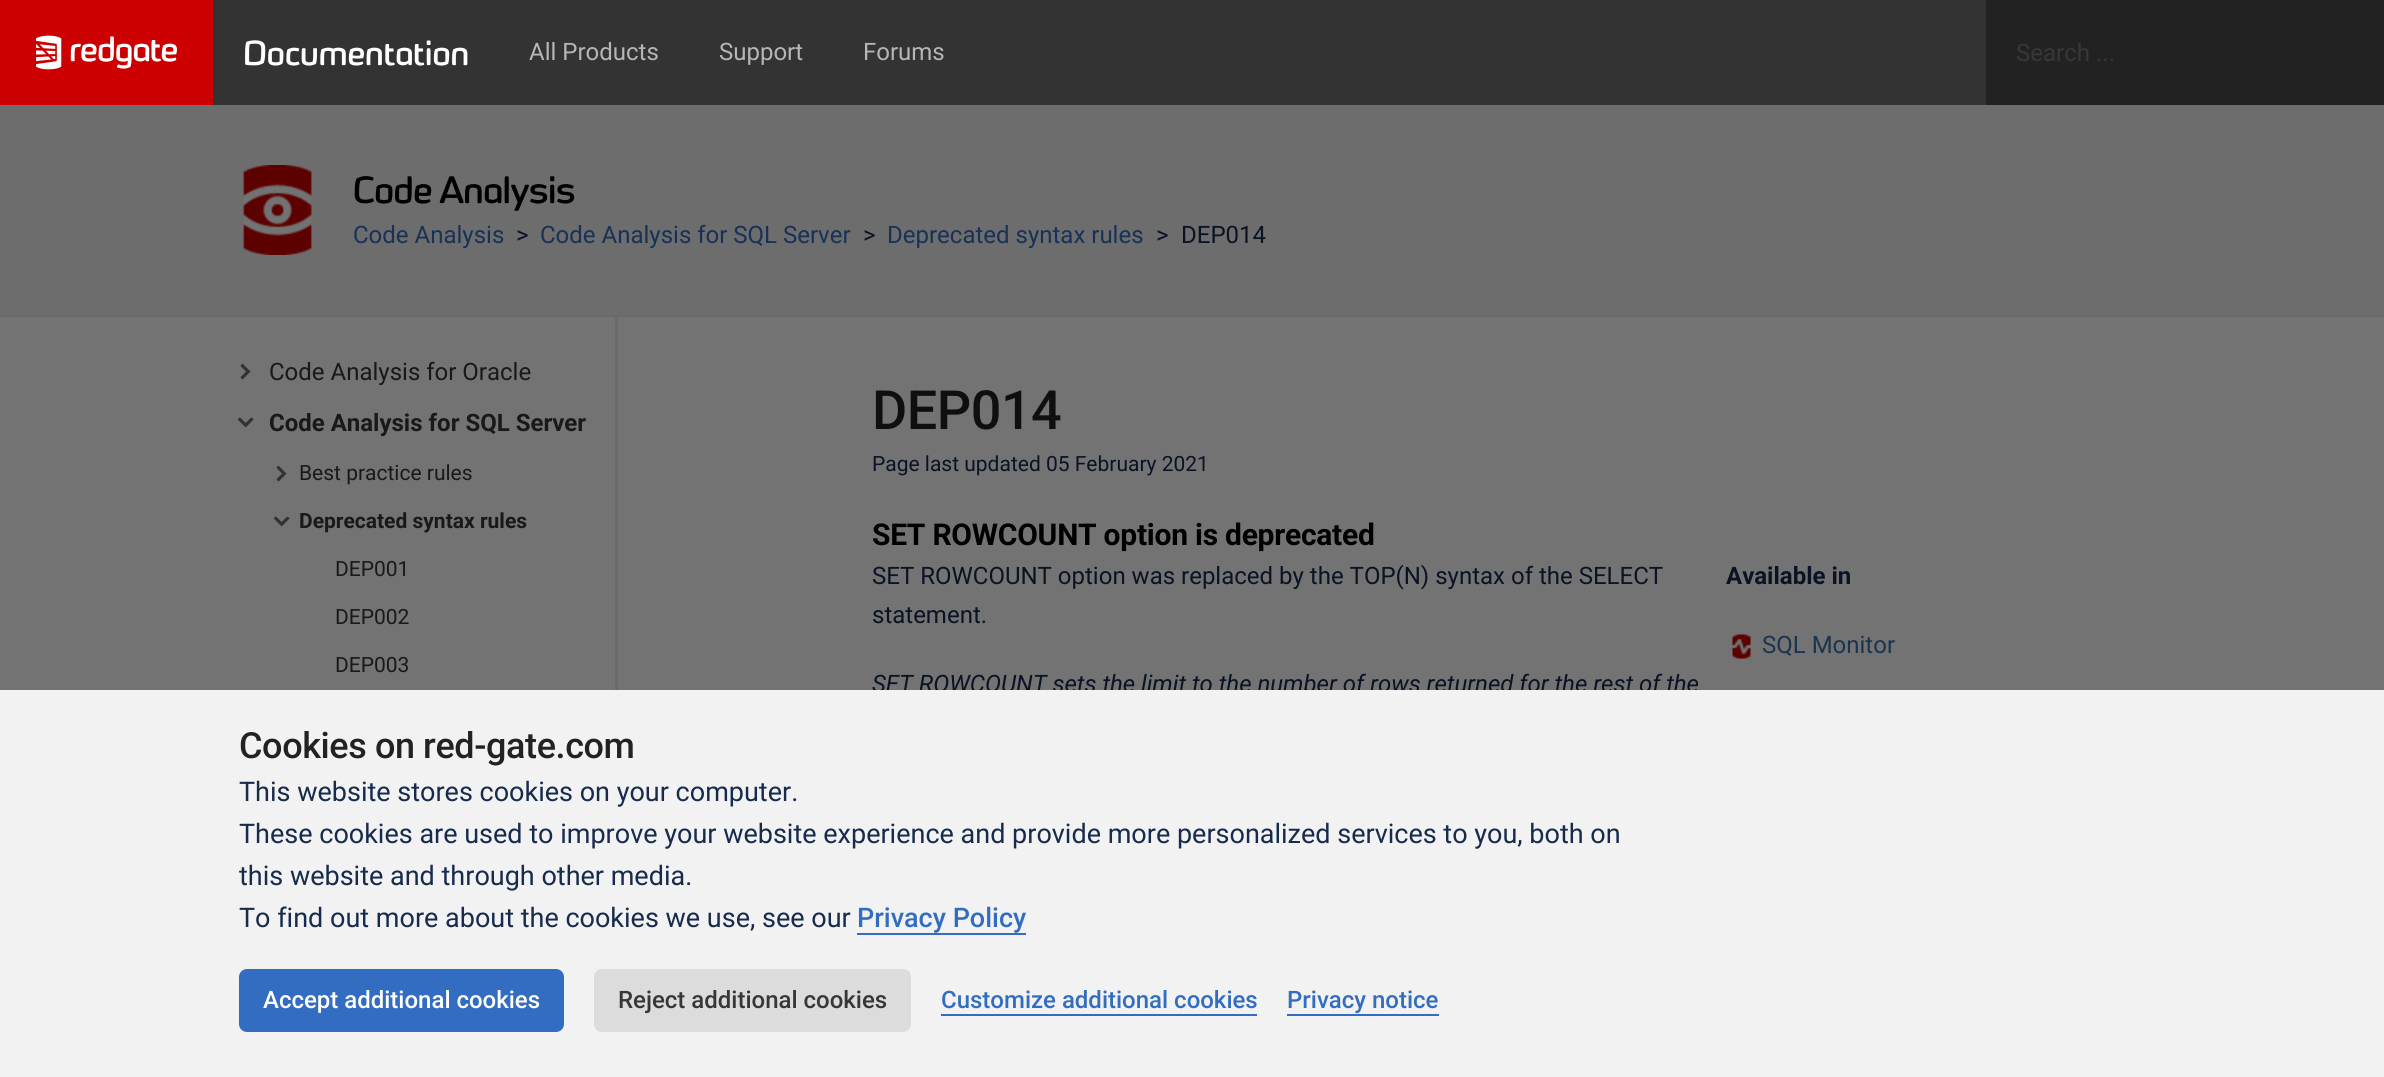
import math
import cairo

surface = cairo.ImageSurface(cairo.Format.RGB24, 2384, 1077)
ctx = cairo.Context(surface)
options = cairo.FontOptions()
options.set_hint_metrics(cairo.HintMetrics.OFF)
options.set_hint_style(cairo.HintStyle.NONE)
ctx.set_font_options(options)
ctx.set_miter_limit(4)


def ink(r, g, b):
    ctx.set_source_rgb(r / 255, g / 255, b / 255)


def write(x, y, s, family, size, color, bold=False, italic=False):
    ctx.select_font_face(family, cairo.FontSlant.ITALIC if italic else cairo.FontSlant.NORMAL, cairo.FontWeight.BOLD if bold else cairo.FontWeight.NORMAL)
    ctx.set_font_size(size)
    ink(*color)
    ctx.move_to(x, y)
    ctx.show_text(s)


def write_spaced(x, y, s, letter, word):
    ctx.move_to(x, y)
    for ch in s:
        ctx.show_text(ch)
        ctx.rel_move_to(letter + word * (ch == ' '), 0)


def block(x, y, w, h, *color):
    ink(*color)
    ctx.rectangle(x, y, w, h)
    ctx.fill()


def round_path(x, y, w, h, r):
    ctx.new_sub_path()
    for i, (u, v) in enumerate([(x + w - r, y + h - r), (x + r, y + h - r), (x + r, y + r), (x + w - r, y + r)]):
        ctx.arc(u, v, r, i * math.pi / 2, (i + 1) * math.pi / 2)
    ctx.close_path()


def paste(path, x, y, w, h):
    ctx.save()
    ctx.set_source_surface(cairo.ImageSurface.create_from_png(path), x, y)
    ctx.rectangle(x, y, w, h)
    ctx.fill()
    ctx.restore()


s1 = dict(family="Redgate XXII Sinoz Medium", size=33, color=(255, 255, 255))
s2 = dict(family="Roboto", size=24, color=(182, 182, 182))
s3 = dict(family="Roboto", size=24, color=(55, 55, 55))
s4 = dict(family="Roboto", size=24, color=(23, 49, 87))
s5 = dict(family="Roboto", size=24, color=(10, 19, 35))
s6 = dict(family="Roboto", size=24, color=(25, 25, 25))
s7 = dict(family="Roboto", size=24, color=(25, 25, 25), bold=True)
s8 = dict(family="Roboto", size=21, color=(25, 25, 25))
s9 = dict(family="Roboto", size=21, color=(25, 25, 25), bold=True)
s10 = dict(family="Roboto", size=21, color=(10, 19, 35))
s11 = dict(family="Roboto", size=24, color=(10, 19, 35), italic=True)
s12 = dict(family="Roboto", size=24, color=(10, 19, 35), bold=True)
s13 = dict(family="Roboto", size=24, color=(27, 52, 79))
s14 = dict(family="Roboto", size=27, color=(23, 43, 77))
s15 = dict(family="Roboto Medium", size=27, color=(51, 109, 194))
s16 = dict(family="Roboto Medium", size=24, color=(255, 255, 255))
s17 = dict(family="Roboto Medium", size=24, color=(55, 55, 55))
s18 = dict(family="Roboto Medium", size=24, color=(51, 109, 194))

ink(115, 115, 115)
ctx.paint()
block(213, 0, 1773, 105, 51, 51, 51)
block(0, 0, 213, 105, 204, 0, 0)
paste("pic1.png", 36, 35, 141, 35)
write(243, 65, "Documentation", **s1)
write(529, 60, "All Products", **s2)
write(719, 60, "Support", **s2)
write(863, 60, "Forums", **s2)
block(1986, 0, 398, 105, 34, 34, 34)
write(2016, 61, "Search ...", **s3)
block(0, 105, 2384, 210, 109, 109, 109)
block(0, 315, 2384, 2, 106, 106, 106)
paste("pic2.png", 243, 165, 69, 90)
ctx.select_font_face("Redgate XXII Sinoz Medium")
ctx.set_font_size(36)
ink(0, 0, 0)
write_spaced(353, 203, "Code Analysis", -0.4, 0)
write(353, 243, "Code Analysis", **s4)
write(516, 243, ">", **s5)
write(540, 243, "Code Analysis for SQL Server", **s4)
write(863, 243, ">", **s5)
write(887, 243, "Deprecated syntax rules", **s4)
write(1156, 243, ">", **s5)
write(1181, 243, "DEP014", **s5)
block(615, 317, 3, 373, 106, 106, 106)
paste("pic3.png", 240, 363, 11, 17)
write(269, 380, "Code Analysis for Oracle", **s6)
paste("pic4.png", 237, 417, 17, 11)
write(269, 431, "Code Analysis for SQL Server", **s7)
paste("pic3.png", 276, 465, 11, 17)
write(299, 480, "Best practice rules", **s8)
paste("pic4.png", 273, 516, 17, 11)
write(299, 528, "Deprecated syntax rules", **s9)
write(335, 576, "DEP001", **s8)
write(335, 624, "DEP002", **s8)
write(335, 672, "DEP003", **s8)
ctx.select_font_face("Roboto Medium")
ctx.set_font_size(54)
ink(15, 15, 15)
write_spaced(872, 429, "DEP014", -0.5, 0)
write(872, 471, "Page last updated 05 February 2021", **s10)
ctx.select_font_face("Roboto", cairo.FontSlant.NORMAL, cairo.FontWeight.BOLD)
ctx.set_font_size(30)
ink(0, 0, 0)
write_spaced(872, 545, "SET ROWCOUNT option is deprecated", -0.25, 0)
write(872, 584, "SET ROWCOUNT option was replaced by the TOP(N) syntax of the SELECT", **s5)
write(872, 623, "statement.", **s5)
write(872, 692, "SET ROWCOUNT sets the limit to the number of rows returned for the rest of the", **s11)
write(1726, 584, "Available in", **s12)
paste("pic5.png", 1732, 634, 20, 25)
write(1762, 653, "SQL Monitor", **s13)
block(0, 690, 2384, 387, 242, 242, 242)
ctx.select_font_face("Roboto Medium")
ctx.set_font_size(36)
ink(34, 34, 34)
write_spaced(239, 758, "Cookies on red-gate.com", -0.4, 0)
write(239, 801, "This website stores cookies on your computer.", **s14)
write(239, 843, "These cookies are used to improve your website experience and provide more personalized services to you, both on", **s14)
write(239, 885, "this website and through other media.", **s14)
write(239, 927, "To find out more about the cookies we use, see our", **s14)
write(857, 927, "Privacy Policy", **s15)
block(857, 933, 169, 2, 51, 109, 194)
round_path(239, 969, 325, 63, 8)
ctx.fill()
write(263, 1008, "Accept additional cookies", **s16)
ink(220, 220, 220)
round_path(594, 969, 317, 63, 8)
ctx.fill()
write(618, 1008, "Reject additional cookies", **s17)
write(941, 1008, "Customize additional cookies", **s18)
block(941, 1014, 316, 2, 51, 109, 194)
write(1287, 1008, "Privacy notice", **s18)
block(1287, 1014, 152, 2, 51, 109, 194)
surface.write_to_png("screenshot.png")
